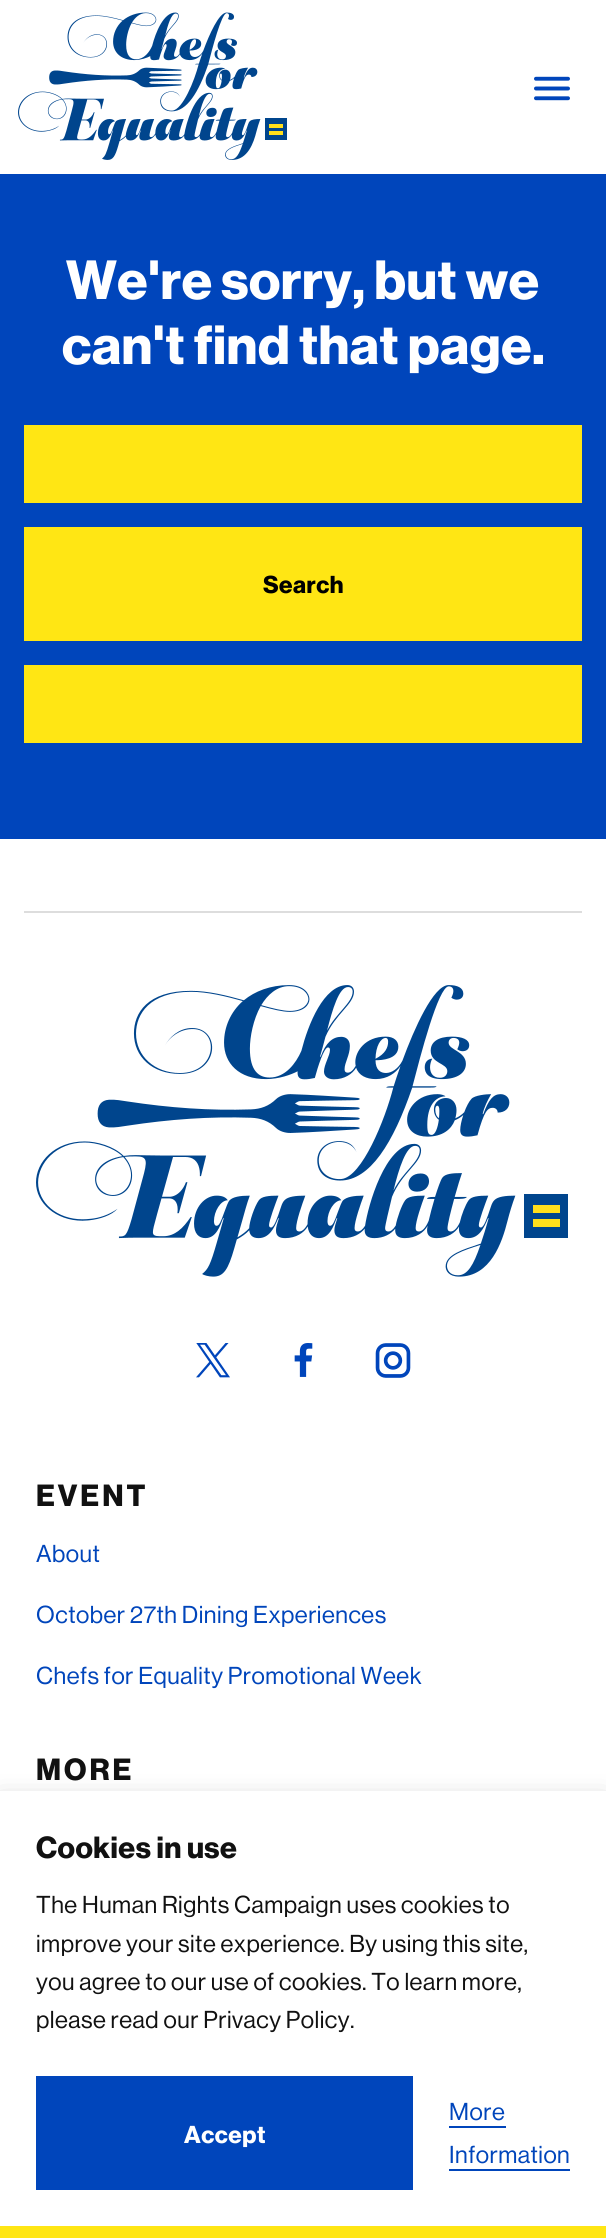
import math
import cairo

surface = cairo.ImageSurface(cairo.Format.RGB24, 606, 2238)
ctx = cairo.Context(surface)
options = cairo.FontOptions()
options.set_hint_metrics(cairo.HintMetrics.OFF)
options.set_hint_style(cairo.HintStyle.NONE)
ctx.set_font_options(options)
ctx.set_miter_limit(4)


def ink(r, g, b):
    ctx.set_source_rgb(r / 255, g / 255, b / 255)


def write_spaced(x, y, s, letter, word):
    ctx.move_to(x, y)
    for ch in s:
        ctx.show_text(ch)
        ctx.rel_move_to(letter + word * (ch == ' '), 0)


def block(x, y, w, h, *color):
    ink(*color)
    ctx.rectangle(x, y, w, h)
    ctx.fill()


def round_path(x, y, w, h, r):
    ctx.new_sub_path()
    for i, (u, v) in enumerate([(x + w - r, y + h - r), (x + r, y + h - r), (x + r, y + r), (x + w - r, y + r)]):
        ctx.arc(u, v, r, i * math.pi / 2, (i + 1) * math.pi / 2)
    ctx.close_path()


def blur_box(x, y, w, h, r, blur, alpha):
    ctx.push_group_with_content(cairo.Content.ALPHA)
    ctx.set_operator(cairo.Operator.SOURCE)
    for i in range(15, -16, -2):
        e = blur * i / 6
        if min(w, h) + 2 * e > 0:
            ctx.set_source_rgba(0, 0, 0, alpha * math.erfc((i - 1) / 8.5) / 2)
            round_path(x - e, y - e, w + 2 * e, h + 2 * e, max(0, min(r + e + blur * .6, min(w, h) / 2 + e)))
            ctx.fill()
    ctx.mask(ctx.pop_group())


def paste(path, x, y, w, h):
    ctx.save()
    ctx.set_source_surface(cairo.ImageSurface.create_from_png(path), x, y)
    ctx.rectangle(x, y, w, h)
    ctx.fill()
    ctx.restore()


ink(255, 255, 255)
ctx.paint()
paste("pic1.png", 18, 12, 269, 148)
paste("pic2.png", 534, 76, 36, 25)
block(0, 174, 606, 665, 0, 69, 187)
ctx.select_font_face("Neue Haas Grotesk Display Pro", cairo.FontSlant.NORMAL, cairo.FontWeight.BOLD)
ctx.set_font_size(54)
ink(255, 255, 255)
write_spaced(66, 299, "We're sorry, but we", 0.5, 0)
write_spaced(62, 364, "can't find that page.", 0.5, 0)
block(24, 425, 558, 78, 255, 230, 20)
block(24, 527, 558, 114, 255, 230, 20)
ctx.set_font_size(24)
ink(0, 0, 0)
write_spaced(263, 593, "Search", 0.5, 0)
block(24, 665, 558, 78, 255, 230, 20)
block(24, 911, 558, 2, 221, 221, 221)
paste("pic3.png", 36, 985, 532, 292)
paste("pic4.png", 196, 1343, 34, 35)
paste("pic5.png", 294, 1343, 19, 34)
paste("pic6.png", 375, 1343, 36, 35)
ctx.set_font_size(30)
ink(17, 17, 17)
write_spaced(36, 1506, "EVENT", 3, 0)
ctx.select_font_face("Neue Haas Grotesk Display Pro Medium")
ctx.set_font_size(24)
ink(0, 69, 187)
write_spaced(36, 1562, "About", 0.5, 0)
write_spaced(36, 1623, "October 27th Dining Experiences", 0.5, 0)
write_spaced(36, 1684, "Chefs for Equality Promotional Week", 0.5, 0)
ctx.select_font_face("Neue Haas Grotesk Display Pro", cairo.FontSlant.NORMAL, cairo.FontWeight.BOLD)
ctx.set_font_size(30)
ink(17, 17, 17)
write_spaced(36, 1780, "MORE", 3, 0)
ink(0, 0, 0)
blur_box(0, 1806, 606, 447, 0, 15, 0.3)
block(0, 1791, 606, 435, 255, 255, 255)
block(0, 2226, 606, 12, 255, 230, 20)
ink(17, 17, 17)
write_spaced(36, 1858, "Cookies in use", 0.5, 0)
ctx.select_font_face("Neue Haas Grotesk Display Pro Medium")
ctx.set_font_size(24)
write_spaced(36, 1913, "The Human Rights Campaign uses cookies to", 0.5, 0)
write_spaced(36, 1952, "improve your site experience. By using this site,", 0.5, 0)
write_spaced(36, 1990, "you agree to our use of cookies. To learn more,", 0.5, 0)
write_spaced(36, 2028, "please read our Privacy Policy.", 0.5, 0)
block(36, 2076, 377, 114, 0, 69, 187)
ctx.select_font_face("Neue Haas Grotesk Display Pro", cairo.FontSlant.NORMAL, cairo.FontWeight.BOLD)
ink(255, 255, 255)
write_spaced(184, 2143, "Accept", 0.5, 0)
ctx.select_font_face("Neue Haas Grotesk Display Pro Medium")
ink(0, 69, 187)
write_spaced(449, 2120, "More", 0.5, 0)
block(449, 2126, 57, 2, 0, 69, 187)
write_spaced(449, 2163, "Information", 0.5, 0)
block(449, 2169, 121, 2, 0, 69, 187)
surface.write_to_png("screenshot.png")
